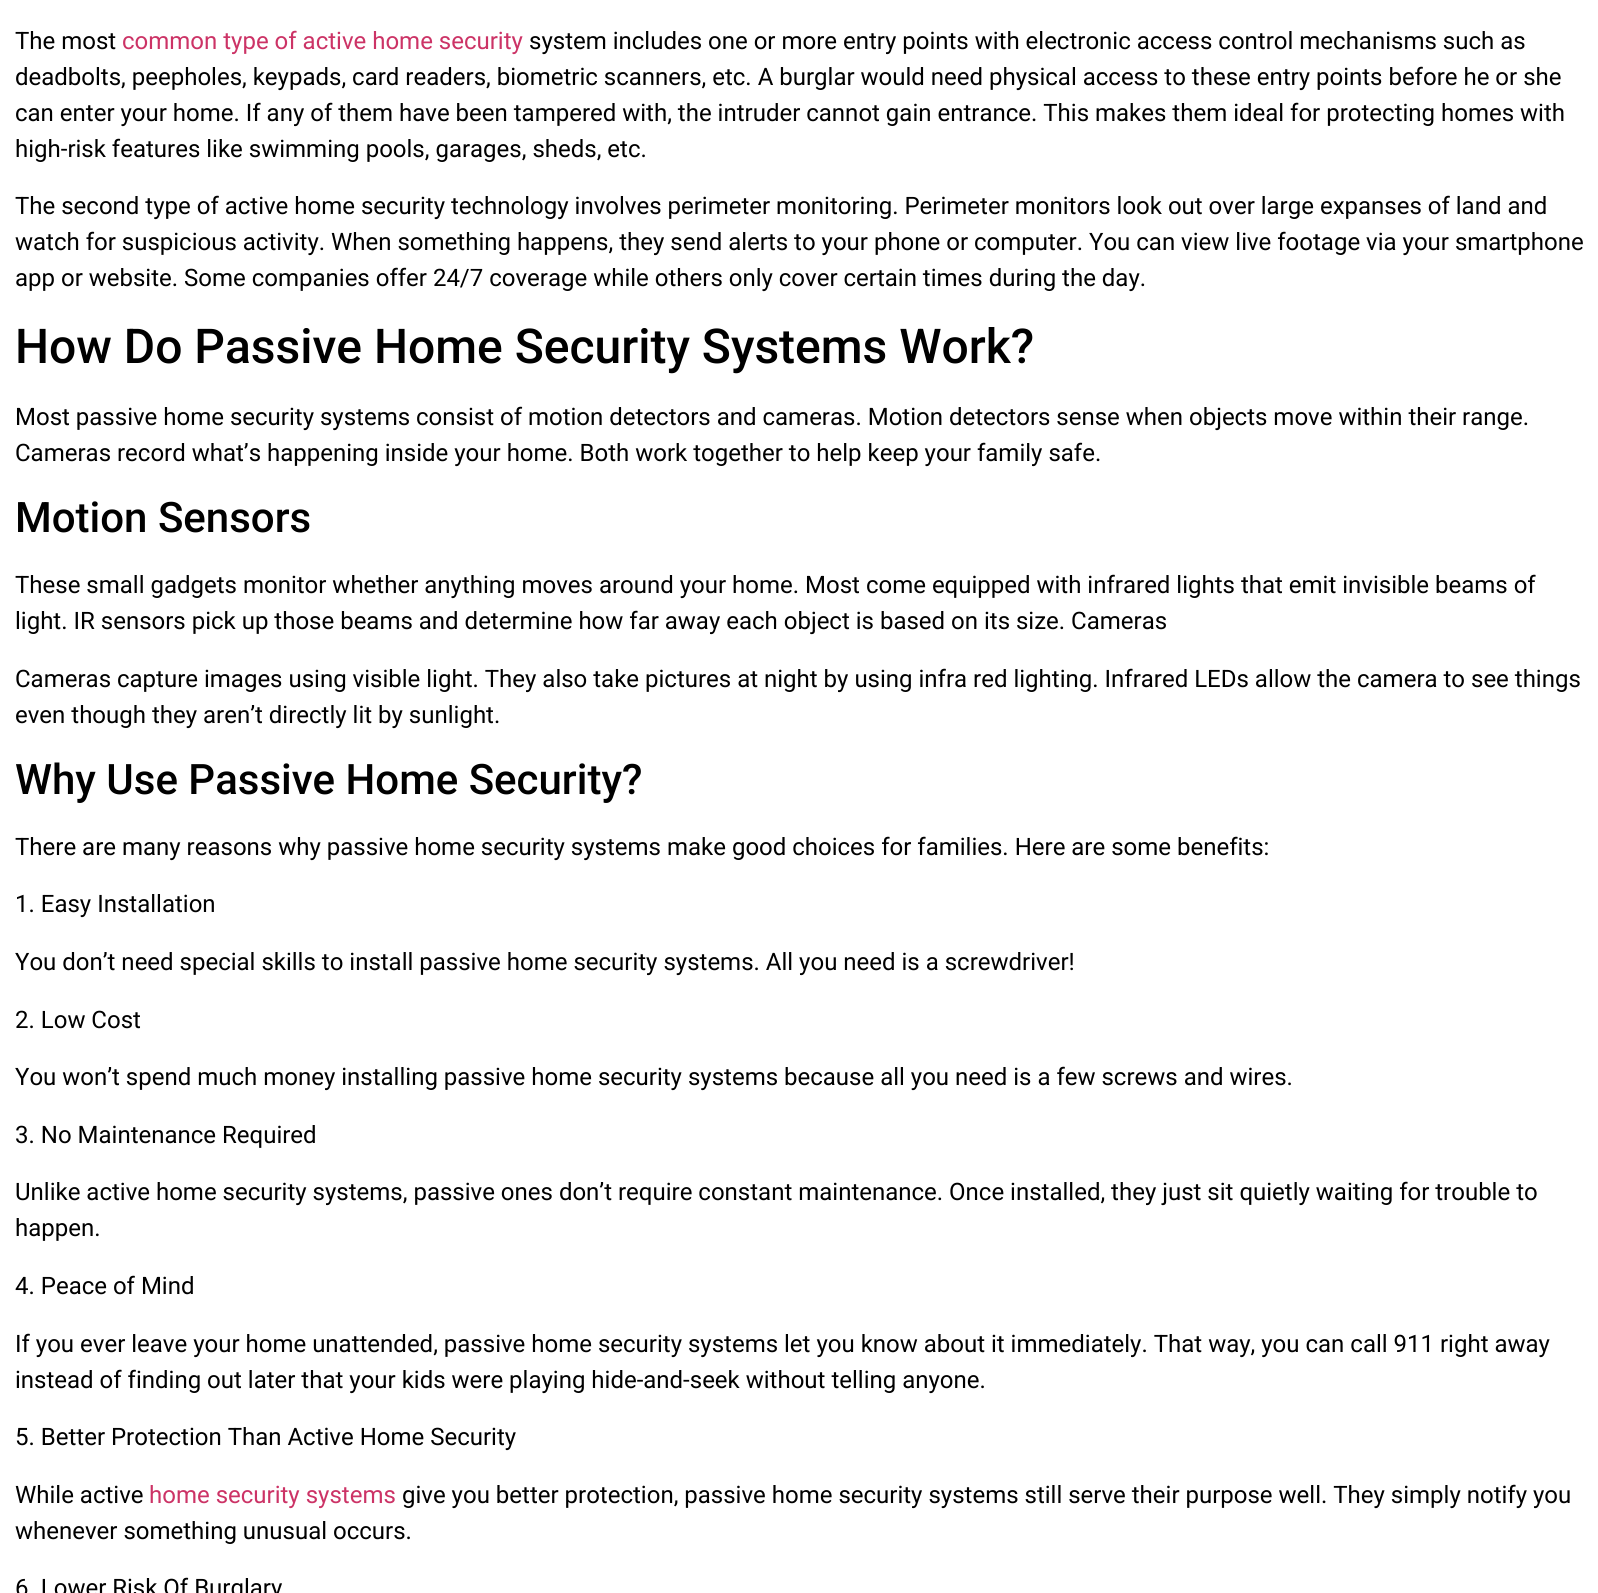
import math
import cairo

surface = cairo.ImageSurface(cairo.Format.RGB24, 1598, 1593)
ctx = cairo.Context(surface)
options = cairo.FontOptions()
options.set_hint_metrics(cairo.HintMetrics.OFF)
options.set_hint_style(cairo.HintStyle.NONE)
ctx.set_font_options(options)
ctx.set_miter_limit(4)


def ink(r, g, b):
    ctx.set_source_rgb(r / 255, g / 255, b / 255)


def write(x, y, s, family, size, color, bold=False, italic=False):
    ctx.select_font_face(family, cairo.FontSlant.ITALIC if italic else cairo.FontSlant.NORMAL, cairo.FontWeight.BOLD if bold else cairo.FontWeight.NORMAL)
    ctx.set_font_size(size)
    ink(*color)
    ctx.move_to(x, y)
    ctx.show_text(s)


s1 = dict(family="Roboto", size=24, color=(0, 0, 0))
s2 = dict(family="Roboto", size=24, color=(204, 51, 102))
s3 = dict(family="Roboto Medium", size=48, color=(0, 0, 0))
s4 = dict(family="Roboto Medium", size=42, color=(0, 0, 0))

ink(255, 255, 255)
ctx.paint()
write(15, 49, "The most", **s1)
write(122, 49, "common type of active home security", **s2)
write(529, 49, "system includes one or more entry points with electronic access control mechanisms such as", **s1)
write(15, 85, "deadbolts, peepholes, keypads, card readers, biometric scanners, etc. A burglar would need physical access to these entry points before he or she", **s1)
write(15, 121, "can enter your home. If any of them have been tampered with, the intruder cannot gain entrance. This makes them ideal for protecting homes with", **s1)
write(15, 157, "high-risk features like swimming pools, garages, sheds, etc.", **s1)
write(15, 214, "The second type of active home security technology involves perimeter monitoring. Perimeter monitors look out over large expanses of land and", **s1)
write(15, 250, "watch for suspicious activity. When something happens, they send alerts to your phone or computer. You can view live footage via your smartphone", **s1)
write(15, 286, "app or website. Some companies offer 24/7 coverage while others only cover certain times during the day.", **s1)
write(15, 363, "How Do Passive Home Security Systems Work?", **s3)
write(15, 425, "Most passive home security systems consist of motion detectors and cameras. Motion detectors sense when objects move within their range.", **s1)
write(15, 461, "Cameras record what’s happening inside your home. Both work together to help keep your family safe.", **s1)
write(15, 532, "Motion Sensors", **s4)
write(15, 593, "These small gadgets monitor whether anything moves around your home. Most come equipped with infrared lights that emit invisible beams of", **s1)
write(15, 629, "light. IR sensors pick up those beams and determine how far away each object is based on its size. Cameras", **s1)
write(15, 687, "Cameras capture images using visible light. They also take pictures at night by using infra red lighting. Infrared LEDs allow the camera to see things", **s1)
write(15, 723, "even though they aren’t directly lit by sunlight.", **s1)
write(15, 794, "Why Use Passive Home Security?", **s4)
write(15, 855, "There are many reasons why passive home security systems make good choices for families. Here are some benefits:", **s1)
write(15, 912, "1. Easy Installation", **s1)
write(15, 970, "You don’t need special skills to install passive home security systems. All you need is a screwdriver!", **s1)
write(15, 1028, "2. Low Cost", **s1)
write(15, 1085, "You won’t spend much money installing passive home security systems because all you need is a few screws and wires.", **s1)
write(15, 1143, "3. No Maintenance Required", **s1)
write(15, 1200, "Unlike active home security systems, passive ones don’t require constant maintenance. Once installed, they just sit quietly waiting for trouble to", **s1)
write(15, 1236, "happen.", **s1)
write(15, 1294, "4. Peace of Mind", **s1)
write(15, 1352, "If you ever leave your home unattended, passive home security systems let you know about it immediately. That way, you can call 911 right away", **s1)
write(15, 1388, "instead of finding out later that your kids were playing hide-and-seek without telling anyone.", **s1)
write(15, 1445, "5. Better Protection Than Active Home Security", **s1)
write(15, 1503, "While active", **s1)
write(149, 1503, "home security systems", **s2)
write(402, 1503, "give you better protection, passive home security systems still serve their purpose well. They simply notify you", **s1)
write(15, 1539, "whenever something unusual occurs.", **s1)
write(15, 1596, "6. Lower Risk Of Burglary", **s1)
surface.write_to_png("screenshot.png")
